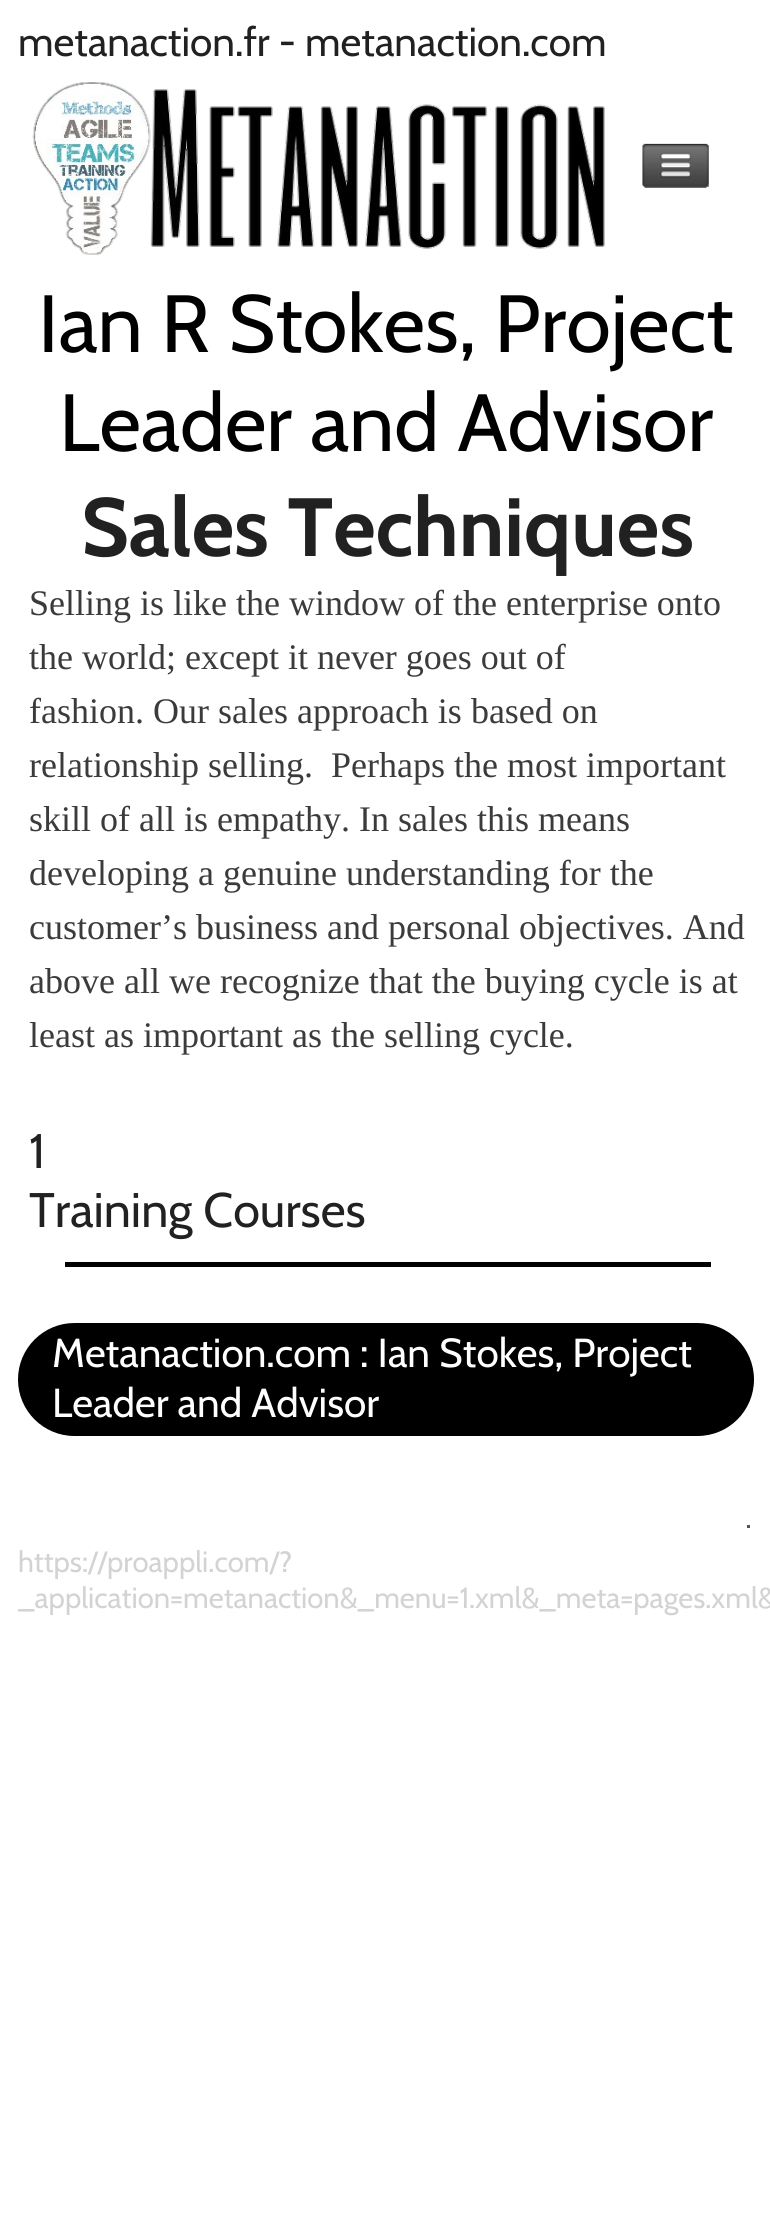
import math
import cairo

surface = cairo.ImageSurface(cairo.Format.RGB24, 770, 2228)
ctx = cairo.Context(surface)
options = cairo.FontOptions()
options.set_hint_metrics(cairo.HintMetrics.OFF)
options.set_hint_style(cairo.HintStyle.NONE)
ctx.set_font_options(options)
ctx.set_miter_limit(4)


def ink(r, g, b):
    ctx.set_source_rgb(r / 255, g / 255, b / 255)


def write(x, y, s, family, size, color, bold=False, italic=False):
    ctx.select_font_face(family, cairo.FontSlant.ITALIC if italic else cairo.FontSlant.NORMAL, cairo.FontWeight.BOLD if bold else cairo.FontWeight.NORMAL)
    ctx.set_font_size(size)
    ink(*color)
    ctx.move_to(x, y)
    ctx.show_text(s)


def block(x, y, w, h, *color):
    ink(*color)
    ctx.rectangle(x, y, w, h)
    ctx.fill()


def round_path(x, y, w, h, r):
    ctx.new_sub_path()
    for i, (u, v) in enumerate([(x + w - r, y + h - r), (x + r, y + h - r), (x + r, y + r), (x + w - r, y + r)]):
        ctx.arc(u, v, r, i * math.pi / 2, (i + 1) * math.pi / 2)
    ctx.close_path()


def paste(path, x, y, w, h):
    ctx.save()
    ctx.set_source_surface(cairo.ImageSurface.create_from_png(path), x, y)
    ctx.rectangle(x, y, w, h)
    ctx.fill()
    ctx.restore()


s1 = dict(family="Cabin", size=40.5, color=(33, 33, 33))
s2 = dict(family="Cabin", size=81, color=(0, 0, 0))
s3 = dict(family="Cabin", size=82.5, color=(33, 33, 33), bold=True)
s4 = dict(family="Liberation Serif", size=36, color=(59, 59, 59))
s5 = dict(family="Cabin", size=48.5, color=(33, 33, 33))
s6 = dict(family="Cabin", size=40.5, color=(255, 255, 255))
s7 = dict(family="Cabin", size=29.25, color=(211, 211, 211))

ink(255, 255, 255)
ctx.paint()
write(18, 56, "metanaction.fr - metanaction.com", **s1)
paste("pic1.png", 32, 82, 573, 173)
paste("pic2.png", 642, 143, 67, 45)
write(38, 352, "Ian R Stokes, Project", **s2)
write(59, 451, "Leader and Advisor", **s2)
write(81, 556, "Sales Techniques", **s3)
write(29, 615, "Selling is like the window of the enterprise onto", **s4)
write(29, 669, "the world; except it never goes out of", **s4)
write(29, 723, "fashion. Our sales approach is based on", **s4)
write(29, 777, "relationship selling.  Perhaps the most important", **s4)
write(29, 831, "skill of all is empathy. In sales this means", **s4)
write(29, 885, "developing a genuine understanding for the", **s4)
write(29, 939, "customer’s business and personal objectives. And", **s4)
write(29, 993, "above all we recognize that the buying cycle is at", **s4)
write(29, 1047, "least as important as the selling cycle.", **s4)
write(29, 1168, "1", **s5)
write(29, 1227, "Training Courses", **s5)
block(65, 1262, 646, 5, 0, 0, 0)
round_path(18, 1323, 736, 113, 56.5)
ctx.fill()
write(52, 1367, "Metanaction.com : Ian Stokes, Project", **s6)
write(52, 1417, "Leader and Advisor", **s6)
block(747, 1525, 3, 3, 84, 84, 84)
write(18, 1572, "https://proappli.com/?", **s7)
write(18, 1608, "_application=metanaction&_menu=1.xml&_meta=pages.xml&", **s7)
surface.write_to_png("screenshot.png")
